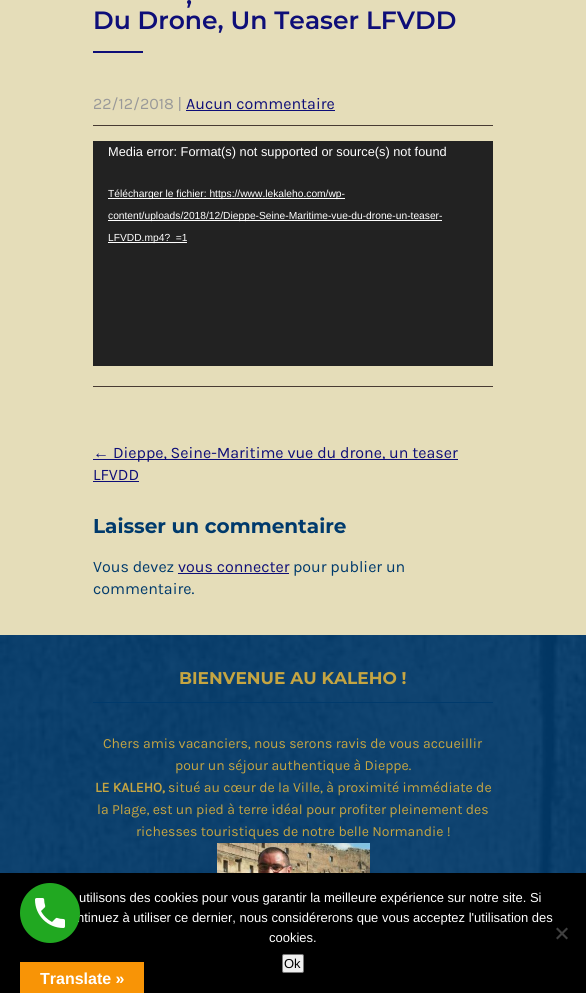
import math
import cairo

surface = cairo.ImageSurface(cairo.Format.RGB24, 586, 993)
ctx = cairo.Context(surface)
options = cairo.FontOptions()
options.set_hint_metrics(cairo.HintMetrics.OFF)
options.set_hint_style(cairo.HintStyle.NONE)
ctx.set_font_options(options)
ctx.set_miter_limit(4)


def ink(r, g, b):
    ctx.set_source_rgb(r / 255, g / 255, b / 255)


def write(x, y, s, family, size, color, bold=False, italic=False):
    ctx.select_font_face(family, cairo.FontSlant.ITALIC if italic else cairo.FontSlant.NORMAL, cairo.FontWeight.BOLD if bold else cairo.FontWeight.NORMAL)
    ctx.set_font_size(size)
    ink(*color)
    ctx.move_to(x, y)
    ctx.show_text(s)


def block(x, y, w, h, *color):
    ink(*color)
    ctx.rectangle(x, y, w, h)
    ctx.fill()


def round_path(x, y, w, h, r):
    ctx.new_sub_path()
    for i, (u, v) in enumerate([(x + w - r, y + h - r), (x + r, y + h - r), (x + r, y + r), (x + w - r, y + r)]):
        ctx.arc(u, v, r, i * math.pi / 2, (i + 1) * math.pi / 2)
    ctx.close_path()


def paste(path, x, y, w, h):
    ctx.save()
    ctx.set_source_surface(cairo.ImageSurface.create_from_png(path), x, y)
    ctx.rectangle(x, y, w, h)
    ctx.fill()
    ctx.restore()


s1 = dict(family="Montserrat SemiBold", size=25, color=(14, 14, 120))
s2 = dict(family="Karla", size=16, color=(153, 153, 153))
s3 = dict(family="Karla", size=16, color=(14, 14, 120))
s4 = dict(family="Liberation Sans", size=12.8, color=(255, 255, 255))
s5 = dict(family="Liberation Sans", size=10.25, color=(255, 255, 255))
s6 = dict(family="Liberation Serif", size=16, color=(14, 14, 120))
s7 = dict(family="Montserrat", size=20, color=(0, 58, 108), bold=True)
s8 = dict(family="Karla", size=16, color=(0, 58, 108))
s9 = dict(family="Montserrat", size=17, color=(197, 165, 66), bold=True)
s10 = dict(family="Karla", size=14, color=(197, 165, 66))
s11 = dict(family="Karla", size=14, color=(197, 165, 66), bold=True)
s12 = dict(family="Liberation Sans", size=13, color=(255, 255, 255))
s13 = dict(family="Liberation Sans", size=13, color=(0, 0, 0))
s14 = dict(family="Liberation Sans", size=16, color=(255, 255, 255), bold=True)

ink(229, 221, 185)
ctx.paint()
write(186, 4, ",", **s1)
write(93, 29, "Du Drone, Un Teaser LFVDD", **s1)
block(93, 51, 50, 2, 14, 14, 120)
block(93, 125, 400, 1, 72, 59, 51)
write(93, 109, "22/12/2018 |", **s2)
write(186, 109, "Aucun commentaire", **s3)
block(186, 110, 149, 1, 14, 14, 120)
block(93, 141, 400, 225, 34, 34, 34)
write(108, 156, "Media error: Format(s) not supported or source(s) not found", **s4)
block(108, 198, 237, 1, 255, 255, 255)
write(108, 197, "Télécharger le fichier: https://www.lekaleho.com/wp-", **s5)
block(108, 220, 334, 1, 255, 255, 255)
write(108, 219, "content/uploads/2018/12/Dieppe-Seine-Maritime-vue-du-drone-un-teaser-", **s5)
block(108, 242, 79, 1, 255, 255, 255)
write(108, 241, "LFVDD.mp4?_=1", **s5)
block(93, 386, 400, 1, 72, 59, 51)
write(93, 458, "←", **s6)
block(93, 459, 365, 1, 14, 14, 120)
write(113, 458, "Dieppe, Seine-Maritime vue du drone, un teaser", **s3)
write(93, 480, "LFVDD", **s3)
block(93, 481, 46, 1, 14, 14, 120)
write(93, 533, "Laisser un commentaire", **s7)
write(93, 572, "Vous devez", **s8)
write(178, 572, "vous connecter", **s3)
block(178, 573, 111, 1, 14, 14, 120)
write(293, 572, "pour publier un", **s8)
write(93, 594, "commentaire.", **s8)
paste("pic1.png", 0, 635, 586, 238)
block(93, 702, 400, 1, 0, 58, 108)
write(179, 684, "BIENVENUE AU KALEHO !", **s9)
write(103, 748, "Chers amis vacanciers, nous serons ravis de vous accueillir", **s10)
write(175, 770, "pour un séjour authentique à Dieppe.", **s10)
write(95, 792, "LE KALEHO,", **s11)
write(168, 792, "situé au cœur de la Ville, à proximité immédiate de", **s10)
write(97, 814, "la Plage, est un pied à terre idéal pour profiter pleinement des", **s10)
write(136, 836, "richesses touristiques de notre belle Normandie !", **s10)
paste("pic2.png", 217, 843, 153, 30)
block(0, 873, 586, 120, 0, 0, 0)
write(79, 902, "utilisons des cookies pour vous garantir la meilleure expérience sur notre site. Si", **s12)
write(77, 922, "ntinuez à utiliser ce dernier, nous considérerons que vous acceptez l'utilisation des", **s12)
ink(33, 168, 33)
ctx.new_path()
ctx.arc(50, 913, 30, 0, 2 * math.pi)
ctx.fill()
paste("pic3.png", 35, 898, 30, 30)
write(269, 942, "cookies.", **s12)
ink(64, 64, 64)
ctx.new_path()
ctx.move_to(566.5, 927.5)
ctx.line_to(568, 929)
ctx.line_to(557.5, 939.5)
ctx.line_to(556, 938)
ctx.close_path()
ctx.fill()
ctx.new_path()
ctx.move_to(556, 929)
ctx.line_to(557.5, 927.5)
ctx.line_to(568, 938)
ctx.line_to(566.5, 939.5)
ctx.close_path()
ctx.fill()
ink(239, 239, 239)
round_path(282.5, 954.5, 21, 18, 1.5)
ctx.fill_preserve()
ink(118, 118, 118)
ctx.set_line_width(1)
ctx.stroke()
write(284, 968, "Ok", **s13)
block(20, 962, 124, 31, 248, 148, 6)
write(40, 984, "Translate »", **s14)
surface.write_to_png("screenshot.png")
